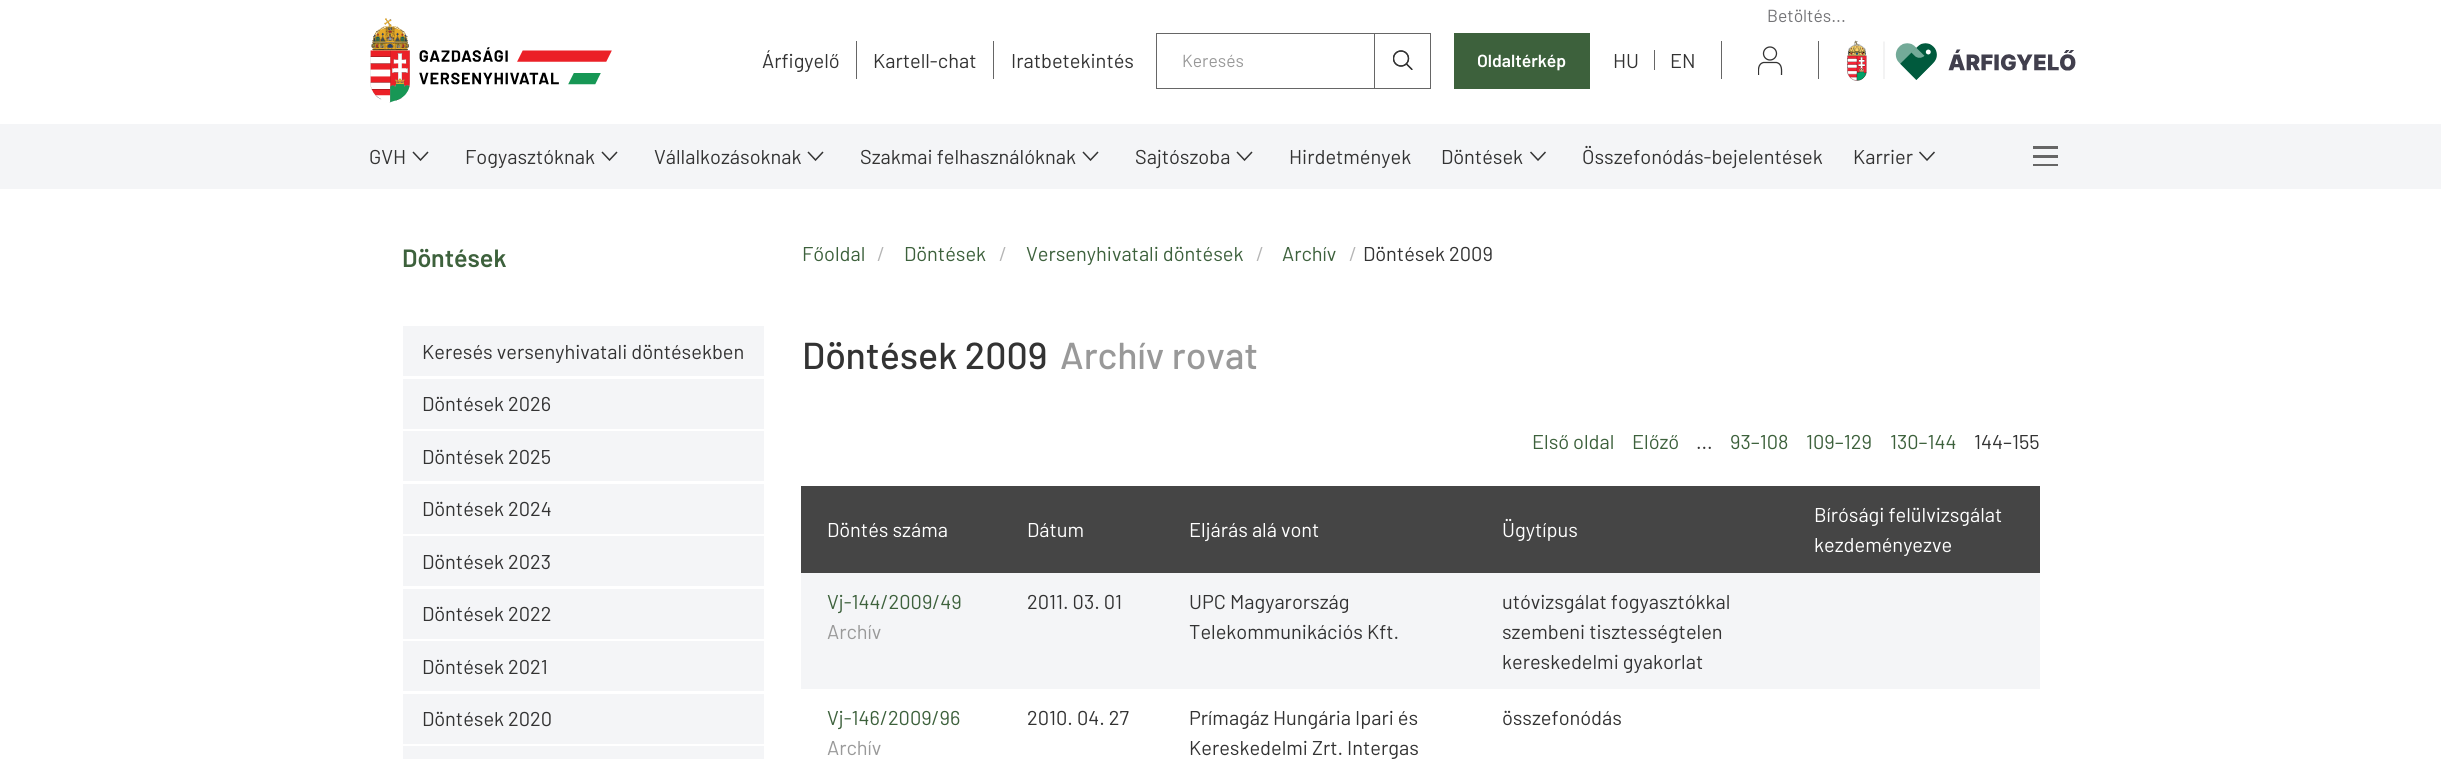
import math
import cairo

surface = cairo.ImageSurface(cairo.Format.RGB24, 2441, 759)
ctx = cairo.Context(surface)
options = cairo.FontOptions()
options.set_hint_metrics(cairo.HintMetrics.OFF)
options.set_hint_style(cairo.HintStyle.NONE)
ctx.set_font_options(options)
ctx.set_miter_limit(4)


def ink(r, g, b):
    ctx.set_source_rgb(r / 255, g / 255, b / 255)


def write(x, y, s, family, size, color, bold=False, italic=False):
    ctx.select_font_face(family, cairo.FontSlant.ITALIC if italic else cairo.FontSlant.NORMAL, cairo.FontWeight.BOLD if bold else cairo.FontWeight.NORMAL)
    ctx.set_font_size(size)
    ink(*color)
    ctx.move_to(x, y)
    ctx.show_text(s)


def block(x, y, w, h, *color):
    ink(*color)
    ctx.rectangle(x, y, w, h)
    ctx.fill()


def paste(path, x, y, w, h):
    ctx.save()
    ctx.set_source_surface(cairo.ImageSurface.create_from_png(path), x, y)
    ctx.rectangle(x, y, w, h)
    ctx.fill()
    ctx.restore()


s1 = dict(family="Barlow", size=17.5, color=(116, 116, 119))
s2 = dict(family="Barlow", size=20, color=(51, 51, 51))
s3 = dict(family="Barlow", size=17.5, color=(153, 153, 153))
s4 = dict(family="Barlow SemiBold", size=17.5, color=(255, 255, 255))
s5 = dict(family="Barlow SemiBold", size=25, color=(61, 97, 60))
s6 = dict(family="Barlow", size=20, color=(61, 97, 60))
s7 = dict(family="Barlow", size=20, color=(181, 181, 181))
s8 = dict(family="Barlow Medium", size=37.5, color=(51, 51, 51))
s9 = dict(family="Barlow Medium", size=37.5, color=(153, 153, 153))
s10 = dict(family="Barlow", size=20, color=(255, 255, 255))
s11 = dict(family="Barlow", size=20, color=(153, 153, 153))

ink(255, 255, 255)
ctx.paint()
paste("pic1.png", 370, 18, 242, 85)
write(1767, 22, "Betöltés...", **s1)
ctx.new_path()
ctx.arc(1770, 53.5, 6.5, 0, 2 * math.pi)
ink(51, 51, 51)
ctx.set_line_width(1.3)
ctx.stroke()
ctx.save()
ctx.rectangle(1758, 46, 25, 29)
ctx.clip()
ctx.new_path()
ctx.move_to(1781.5, 75)
ctx.curve_to(1781.5, 70.5, 1782.5, 64, 1776.5, 62.5)
ctx.line_to(1763.5, 62.5)
ctx.curve_to(1757.5, 64, 1758.5, 70.5, 1758.5, 75)
ctx.stroke()
ctx.restore()
write(762, 68, "Árfigyelő", **s2)
block(856, 41, 1, 38, 102, 102, 102)
write(873, 68, "Kartell-chat", **s2)
block(993, 41, 1, 38, 102, 102, 102)
write(1011, 68, "Iratbetekintés", **s2)
ctx.rectangle(1156.5, 33.5, 274, 55)
ink(102, 102, 102)
ctx.set_line_width(1)
ctx.stroke()
write(1182, 67, "Keresés", **s3)
paste("pic2.png", 1393, 50, 20, 20)
block(1374, 34, 1, 54, 102, 102, 102)
block(1454, 33, 136, 56, 61, 97, 60)
write(1477, 67, "Oldaltérkép", **s4)
block(1721, 41, 1, 38, 102, 102, 102)
write(1613, 68, "HU", **s2)
block(1654, 50, 1, 20, 102, 102, 102)
write(1670, 68, "EN", **s2)
block(1818, 41, 1, 38, 102, 102, 102)
paste("pic3.png", 1847, 40, 229, 41)
block(0, 124, 2441, 65, 244, 245, 247)
write(369, 164, "GVH", **s2)
ctx.new_path()
ctx.move_to(428, 152)
ctx.line_to(420.5, 160)
ctx.line_to(413, 152)
ctx.set_line_width(1.5)
ctx.stroke()
write(465, 164, "Fogyasztóknak", **s2)
ctx.new_path()
ctx.move_to(617, 152)
ctx.line_to(609.5, 160)
ctx.line_to(602, 152)
ctx.stroke()
write(654, 164, "Vállalkozásoknak", **s2)
ctx.new_path()
ctx.move_to(823, 152)
ctx.line_to(815.5, 160)
ctx.line_to(808, 152)
ctx.stroke()
write(860, 164, "Szakmai felhasználóknak", **s2)
ctx.new_path()
ctx.move_to(1098, 152)
ctx.line_to(1090.5, 160)
ctx.line_to(1083, 152)
ctx.stroke()
write(1135, 164, "Sajtószoba", **s2)
ctx.new_path()
ctx.move_to(1252, 152)
ctx.line_to(1244.5, 160)
ctx.line_to(1237, 152)
ctx.stroke()
write(1289, 164, "Hirdetmények", **s2)
write(1441, 164, "Döntések", **s2)
ctx.new_path()
ctx.move_to(1545.5, 152)
ctx.line_to(1538, 160)
ctx.line_to(1530.5, 152)
ctx.stroke()
write(1582, 164, "Összefonódás-bejelentések", **s2)
write(1853, 164, "Karrier", **s2)
ctx.new_path()
ctx.move_to(1934.5, 152)
ctx.line_to(1927, 160)
ctx.line_to(1919.5, 152)
ctx.stroke()
gradient = cairo.LinearGradient(2045, 146, 2045, 155)
gradient.add_color_stop_rgba(0, 0.4, 0.4, 0.4, 1)
gradient.add_color_stop_rgba(0.29, 0.4, 0.4, 0.4, 1)
gradient.add_color_stop_rgba(0.29, 0.957, 0.961, 0.969, 1)
gradient.add_color_stop_rgba(1, 0.957, 0.961, 0.969, 1)
ctx.set_source(gradient)
ctx.rectangle(2033, 146, 25, 3)
ctx.fill()
gradient = cairo.LinearGradient(2045, 155, 2045, 164)
gradient.add_color_stop_rgba(0, 0.4, 0.4, 0.4, 1)
gradient.add_color_stop_rgba(0.29, 0.4, 0.4, 0.4, 1)
gradient.add_color_stop_rgba(0.29, 0.957, 0.961, 0.969, 1)
gradient.add_color_stop_rgba(1, 0.957, 0.961, 0.969, 1)
ctx.set_source(gradient)
ctx.rectangle(2033, 155, 25, 3)
ctx.fill()
gradient = cairo.LinearGradient(2045, 164, 2045, 173)
gradient.add_color_stop_rgba(0, 0.4, 0.4, 0.4, 1)
gradient.add_color_stop_rgba(0.29, 0.4, 0.4, 0.4, 1)
gradient.add_color_stop_rgba(0.29, 0.957, 0.961, 0.969, 1)
gradient.add_color_stop_rgba(1, 0.957, 0.961, 0.969, 1)
ctx.set_source(gradient)
ctx.rectangle(2033, 164, 25, 2)
ctx.fill()
write(402, 267, "Döntések", **s5)
block(403, 326, 361, 50, 244, 245, 247)
write(422, 359, "Keresés versenyhivatali döntésekben", **s2)
block(403, 379, 361, 50, 244, 245, 247)
write(422, 411, "Döntések 2026", **s2)
block(403, 431, 361, 50, 244, 245, 247)
write(422, 464, "Döntések 2025", **s2)
block(403, 484, 361, 50, 244, 245, 247)
write(422, 516, "Döntések 2024", **s2)
block(403, 536, 361, 50, 244, 245, 247)
write(422, 569, "Döntések 2023", **s2)
block(403, 589, 361, 50, 244, 245, 247)
write(422, 621, "Döntések 2022", **s2)
block(403, 641, 361, 50, 244, 245, 247)
write(422, 674, "Döntések 2021", **s2)
block(403, 694, 361, 50, 244, 245, 247)
write(422, 726, "Döntések 2020", **s2)
block(403, 746, 361, 13, 244, 245, 247)
write(802, 261, "Főoldal", **s6)
write(877, 261, "/", **s7)
write(904, 261, "Döntések", **s6)
write(999, 261, "/", **s7)
write(1026, 261, "Versenyhivatali döntések", **s6)
write(1256, 261, "/", **s7)
write(1282, 261, "Archív", **s6)
write(1349, 261, "/", **s7)
write(1363, 261, "Döntések 2009", **s2)
write(802, 369, "Döntések 2009", **s8)
write(1060, 369, "Archív rovat", **s9)
write(1532, 449, "Első oldal", **s6)
write(1632, 449, "Előző", **s6)
write(1696, 449, "...", **s2)
write(1730, 449, "93–108", **s6)
write(1806, 449, "109–129", **s6)
write(1890, 449, "130–144", **s6)
write(1974, 449, "144–155", **s2)
block(801, 486, 1239, 87, 69, 69, 69)
write(827, 537, "Döntés száma", **s10)
write(1027, 537, "Dátum", **s10)
write(1189, 537, "Eljárás alá vont", **s10)
write(1502, 537, "Ügytípus", **s10)
write(1814, 522, "Bírósági felülvizsgálat", **s10)
write(1814, 552, "kezdeményezve", **s10)
block(801, 573, 1239, 116, 244, 245, 247)
write(827, 609, "Vj-144/2009/49", **s6)
write(827, 639, "Archív", **s11)
write(1027, 609, "2011. 03. 01", **s2)
write(1189, 609, "UPC Magyarország", **s2)
write(1189, 639, "Telekommunikációs Kft.", **s2)
write(1502, 609, "utóvizsgálat fogyasztókkal", **s2)
write(1502, 639, "szembeni tisztességtelen", **s2)
write(1502, 669, "kereskedelmi gyakorlat", **s2)
write(827, 725, "Vj-146/2009/96", **s6)
write(827, 755, "Archív", **s11)
write(1027, 725, "2010. 04. 27", **s2)
write(1189, 725, "Prímagáz Hungária Ipari és", **s2)
write(1189, 755, "Kereskedelmi Zrt. Intergas", **s2)
write(1502, 725, "összefonódás", **s2)
surface.write_to_png("screenshot.png")
